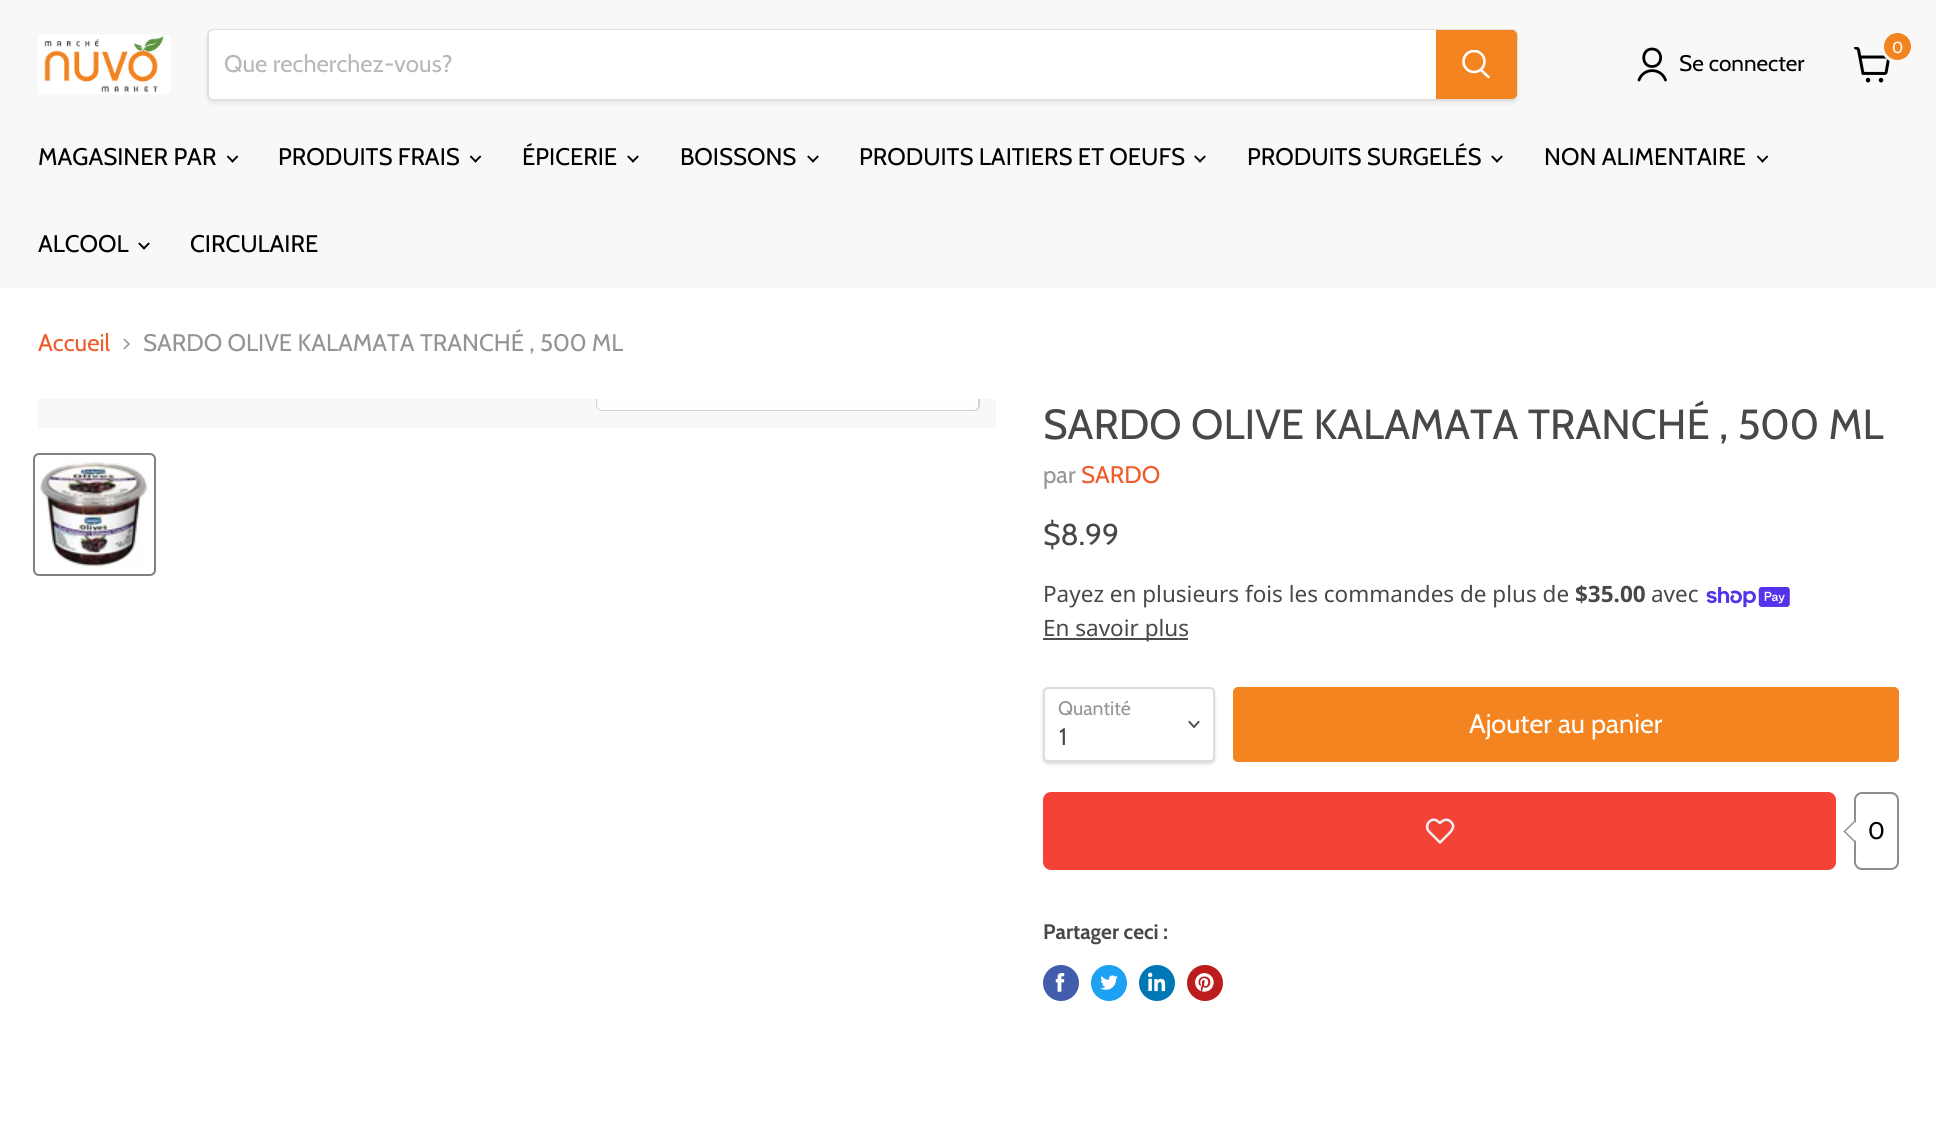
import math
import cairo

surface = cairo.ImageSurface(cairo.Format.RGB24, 1936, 1128)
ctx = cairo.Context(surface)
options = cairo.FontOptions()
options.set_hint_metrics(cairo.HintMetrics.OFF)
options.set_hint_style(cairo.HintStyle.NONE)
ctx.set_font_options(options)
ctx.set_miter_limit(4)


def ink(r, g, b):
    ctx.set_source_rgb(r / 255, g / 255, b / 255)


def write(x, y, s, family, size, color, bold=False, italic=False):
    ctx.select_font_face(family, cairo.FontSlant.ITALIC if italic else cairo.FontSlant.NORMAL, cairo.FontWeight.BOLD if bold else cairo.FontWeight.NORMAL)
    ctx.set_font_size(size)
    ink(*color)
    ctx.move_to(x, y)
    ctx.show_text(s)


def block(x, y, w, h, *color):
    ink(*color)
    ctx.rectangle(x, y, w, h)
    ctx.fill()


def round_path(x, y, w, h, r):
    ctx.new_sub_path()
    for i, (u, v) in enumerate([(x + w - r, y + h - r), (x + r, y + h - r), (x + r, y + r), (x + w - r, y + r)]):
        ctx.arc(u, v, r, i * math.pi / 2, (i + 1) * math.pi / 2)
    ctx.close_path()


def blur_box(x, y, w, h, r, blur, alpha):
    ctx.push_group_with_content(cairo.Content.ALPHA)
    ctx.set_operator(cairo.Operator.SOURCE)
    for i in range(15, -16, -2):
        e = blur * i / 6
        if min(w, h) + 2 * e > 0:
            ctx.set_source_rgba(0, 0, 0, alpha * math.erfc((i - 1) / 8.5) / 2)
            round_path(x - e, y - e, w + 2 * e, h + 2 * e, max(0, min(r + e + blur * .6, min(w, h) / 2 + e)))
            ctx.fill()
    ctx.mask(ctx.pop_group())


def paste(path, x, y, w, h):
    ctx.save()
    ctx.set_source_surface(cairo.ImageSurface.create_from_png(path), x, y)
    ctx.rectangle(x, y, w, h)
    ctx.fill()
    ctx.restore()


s1 = dict(family="Cabin", size=24, color=(184, 184, 184))
s2 = dict(family="Cabin", size=16, color=(255, 255, 255))
s3 = dict(family="Cabin", size=22.5, color=(0, 0, 0))
s4 = dict(family="Cabin", size=24, color=(0, 0, 0))
s5 = dict(family="Cabin", size=24, color=(241, 90, 41))
s6 = dict(family="Cabin", size=24, color=(148, 148, 148))
s7 = dict(family="Cabin", size=42, color=(72, 72, 72))
s8 = dict(family="Cabin", size=30, color=(72, 72, 72))
s9 = dict(family="Noto Sans", size=22.5, color=(72, 72, 72))
s10 = dict(family="Noto Sans", size=22.5, color=(72, 72, 72), bold=True)
s11 = dict(family="Cabin", size=19.5, color=(148, 148, 148))
s12 = dict(family="Cabin", size=24, color=(72, 72, 72))
s13 = dict(family="Cabin", size=27, color=(255, 255, 255))
s14 = dict(family="Cabin", size=21, color=(72, 72, 72), bold=True)

ink(255, 255, 255)
ctx.paint()
block(0, 0, 1936, 288, 248, 248, 248)
paste("pic1.png", 38, 35, 133, 59)
ctx.save()
ctx.set_fill_rule(cairo.FillRule.EVEN_ODD)
ctx.new_path()
ctx.move_to(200, 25)
ctx.line_to(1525, 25)
ctx.line_to(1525, 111)
ctx.line_to(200, 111)
ctx.close_path()
ctx.move_to(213, 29)
ctx.line_to(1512, 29)
ctx.curve_to(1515.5, 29, 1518, 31.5, 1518, 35)
ctx.line_to(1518, 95)
ctx.curve_to(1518, 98.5, 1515.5, 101, 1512, 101)
ctx.line_to(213, 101)
ctx.curve_to(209.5, 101, 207, 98.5, 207, 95)
ctx.line_to(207, 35)
ctx.curve_to(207, 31.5, 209.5, 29, 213, 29)
ctx.close_path()
ctx.clip()
ink(128, 128, 128)
blur_box(207, 32, 1311, 72, 6, 2, 0.11)
ctx.restore()
round_path(208, 30, 1309, 70, 5)
ctx.set_source_rgba(0.502, 0.502, 0.502, 0.2)
ctx.stroke()
ink(255, 255, 255)
ctx.new_path()
ctx.move_to(214, 30)
ctx.line_to(1436, 30)
ctx.line_to(1436, 99)
ctx.line_to(214, 99)
ctx.curve_to(211, 99, 209, 97, 209, 94)
ctx.line_to(209, 35)
ctx.curve_to(209, 32, 211, 30, 214, 30)
ctx.close_path()
ctx.fill()
write(224, 72, "Que recherchez-vous?", **s1)
ink(243, 132, 31)
ctx.new_path()
ctx.move_to(1437, 31)
ctx.line_to(1512, 31)
ctx.curve_to(1514, 31, 1516, 33, 1516, 35)
ctx.line_to(1516, 94)
ctx.curve_to(1516, 96, 1514, 98, 1512, 98)
ctx.line_to(1437, 98)
ctx.close_path()
ctx.fill_preserve()
ctx.stroke()
ctx.new_path()
ctx.move_to(1488.5, 77)
ctx.line_to(1481, 70)
ink(255, 255, 255)
ctx.set_line_width(2.6)
ctx.set_line_cap(cairo.LineCap.ROUND)
ctx.stroke()
ctx.save()
ctx.rectangle(1461, 50, 30, 31)
ctx.clip()
ctx.arc(1474, 61.5, 10.5, 0, 2 * math.pi)
ctx.set_line_cap(cairo.LineCap.BUTT)
ctx.stroke()
ctx.restore()
paste("pic2.png", 1854, 47, 36, 36)
ink(243, 132, 31)
ctx.arc(1897.5, 46.5, 15, 0, 2 * math.pi)
ctx.fill_preserve()
ink(248, 248, 248)
ctx.set_line_width(3)
ctx.set_line_cap(cairo.LineCap.BUTT)
ctx.stroke()
write(1892, 53, "0", **s2)
ctx.new_path()
ctx.move_to(1652, 66.5)
ctx.curve_to(1663.5, 66.5, 1663.5, 49, 1652, 49)
ctx.curve_to(1641, 49, 1641, 66.5, 1652, 66.5)
ctx.close_path()
ctx.move_to(1665.5, 80)
ctx.curve_to(1661, 67.5, 1643.5, 67.5, 1639, 80)
ink(0, 0, 0)
ctx.set_line_width(2.8)
ctx.set_line_cap(cairo.LineCap.ROUND)
ctx.set_line_join(cairo.LineJoin.ROUND)
ctx.stroke()
write(1679, 71, "Se connecter", **s3)
write(38, 165, "MAGASINER PAR", **s4)
paste("pic3.png", 227, 155, 12, 8)
write(278, 165, "PRODUITS FRAIS", **s4)
paste("pic3.png", 470, 155, 12, 8)
write(522, 165, "ÉPICERIE", **s4)
paste("pic4.png", 627, 155, 12, 8)
write(680, 165, "BOISSONS", **s4)
paste("pic4.png", 807, 155, 12, 8)
write(859, 165, "PRODUITS LAITIERS ET OEUFS", **s4)
paste("pic4.png", 1194, 155, 12, 8)
write(1247, 165, "PRODUITS SURGELÉS", **s4)
paste("pic4.png", 1491, 155, 12, 8)
write(1544, 165, "NON ALIMENTAIRE", **s4)
paste("pic3.png", 1757, 155, 12, 8)
write(38, 252, "ALCOOL", **s4)
paste("pic4.png", 138, 242, 12, 8)
write(190, 252, "CIRCULAIRE", **s4)
write(38, 351, "Accueil", **s5)
paste("pic5.png", 123, 338, 7, 12)
write(143, 351, "SARDO OLIVE KALAMATA TRANCHÉ , 500 ML", **s6)
block(38, 399, 958, 29, 248, 248, 248)
ctx.save()
ctx.rectangle(38, 399, 958, 29)
ctx.clip()
round_path(597, 367, 382, 43, 5)
ink(211, 211, 211)
ctx.set_line_width(2)
ctx.set_line_cap(cairo.LineCap.BUTT)
ctx.set_line_join(cairo.LineJoin.MITER)
ctx.stroke()
ctx.restore()
ctx.set_source_rgba(1, 1, 1, 0.9)
ctx.new_path()
ctx.move_to(597, 399)
ctx.line_to(978, 399)
ctx.line_to(978, 405)
ctx.curve_to(978, 408, 976, 410, 973, 410)
ctx.line_to(602, 410)
ctx.curve_to(599, 410, 597, 408, 597, 405)
ctx.close_path()
ctx.fill()
round_path(34, 454, 121, 121, 5)
ink(129, 129, 129)
ctx.set_line_width(2)
ctx.set_line_cap(cairo.LineCap.BUTT)
ctx.set_line_join(cairo.LineJoin.MITER)
ctx.stroke()
paste("pic6.png", 38, 458, 112, 110)
write(1043, 439, "SARDO OLIVE KALAMATA TRANCHÉ , 500 ML", **s7)
write(1043, 483, "par", **s6)
write(1081, 483, "SARDO", **s5)
write(1043, 545, "$8.99", **s8)
write(1043, 602, "Payez en plusieurs fois les commandes de plus de", **s9)
write(1575, 602, "$35.00", **s10)
write(1651, 602, "avec", **s9)
paste("pic7.png", 1706, 587, 84, 21)
block(1043, 638, 145, 2, 77, 77, 77)
write(1043, 636, "En savoir plus", **s9)
ink(0, 0, 0)
blur_box(1043, 689, 172, 75, 5, 1.5, 0.15)
ink(255, 255, 255)
round_path(1044, 688, 170, 73, 4)
ctx.fill_preserve()
ink(221, 221, 221)
ctx.stroke()
write(1058, 715, "Quantité", **s11)
ctx.new_path()
ctx.move_to(1194, 727)
ctx.line_to(1198.5, 722)
ctx.move_to(1194, 727)
ctx.line_to(1189.5, 722)
ink(77, 77, 77)
ctx.set_line_width(1.9)
ctx.set_line_cap(cairo.LineCap.SQUARE)
ctx.stroke()
write(1059, 745, "1", **s12)
ink(243, 132, 31)
round_path(1234, 688, 664, 73, 4)
ctx.fill_preserve()
ctx.set_line_width(2)
ctx.set_line_cap(cairo.LineCap.BUTT)
ctx.stroke()
write(1469, 733, "Ajouter au panier", **s13)
ink(244, 67, 54)
round_path(1044, 793, 791, 76, 7)
ctx.fill_preserve()
ctx.stroke()
ctx.new_path()
ctx.move_to(1451, 822)
ctx.curve_to(1447.5, 818, 1443, 820, 1440, 823)
ctx.line_to(1438.5, 822)
ctx.curve_to(1436, 819, 1431.5, 819, 1429, 822)
ctx.curve_to(1426.5, 824.5, 1426.5, 829, 1429, 831.5)
ctx.line_to(1440, 842.5)
ctx.line_to(1446.5, 836)
ctx.curve_to(1450, 832.5, 1456.5, 827, 1451, 822)
ctx.close_path()
ink(238, 238, 238)
ctx.set_line_width(2.5)
ctx.set_line_cap(cairo.LineCap.ROUND)
ctx.set_line_join(cairo.LineJoin.ROUND)
ctx.stroke()
round_path(1855, 793, 43, 76, 7)
ink(142, 142, 142)
ctx.set_line_width(2)
ctx.set_line_cap(cairo.LineCap.BUTT)
ctx.set_line_join(cairo.LineJoin.MITER)
ctx.stroke()
ink(255, 255, 255)
ctx.new_path()
ctx.move_to(1854, 821)
ctx.line_to(1864.5, 831.5)
ctx.line_to(1854, 842)
ctx.line_to(1843.5, 831.5)
ctx.close_path()
ctx.fill()
ink(142, 142, 142)
ctx.new_path()
ctx.move_to(1844.5, 830.5)
ctx.line_to(1855, 841)
ctx.line_to(1854, 842)
ctx.line_to(1843.5, 831.5)
ctx.close_path()
ctx.fill()
ctx.new_path()
ctx.move_to(1854, 821)
ctx.line_to(1855, 822)
ctx.line_to(1844.5, 832.5)
ctx.line_to(1843.5, 831.5)
ctx.close_path()
ctx.fill()
write(1868, 839, "0", **s4)
write(1043, 939, "Partager ceci :", **s14)
ink(66, 93, 171)
ctx.new_path()
ctx.arc(1061, 983, 18, 0, 2 * math.pi)
ctx.fill()
paste("pic8.png", 1055, 973, 10, 19)
ink(29, 161, 242)
ctx.arc(1109, 983, 18, 0, 2 * math.pi)
ctx.fill()
paste("pic9.png", 1100, 975, 18, 15)
ink(0, 119, 181)
ctx.arc(1157, 983, 18, 0, 2 * math.pi)
ctx.fill()
paste("pic10.png", 1148, 972, 18, 20)
ink(189, 28, 28)
ctx.arc(1205, 983, 18, 0, 2 * math.pi)
ctx.fill()
paste("pic11.png", 1195, 973, 19, 19)
surface.write_to_png("screenshot.png")
